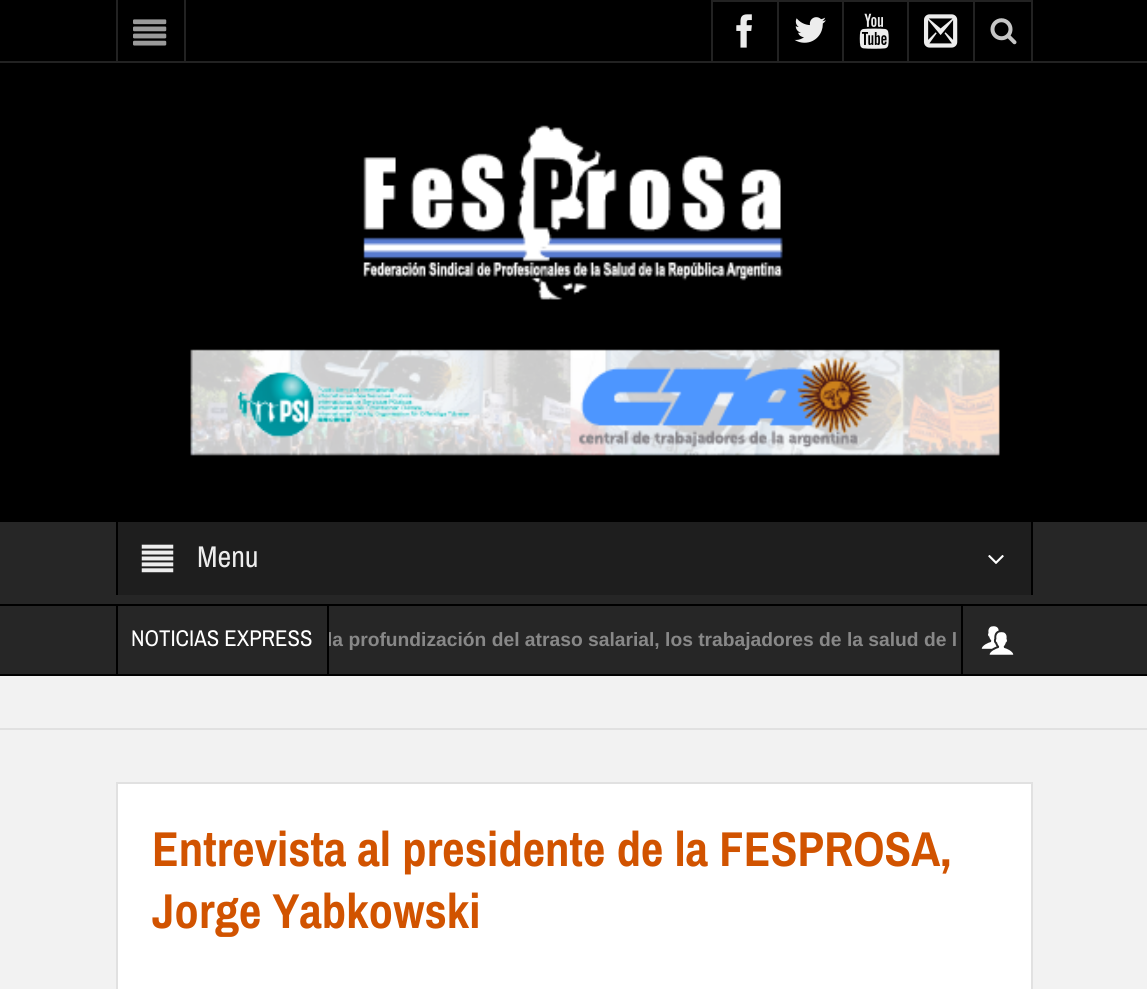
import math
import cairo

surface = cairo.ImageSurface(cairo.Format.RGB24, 1147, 989)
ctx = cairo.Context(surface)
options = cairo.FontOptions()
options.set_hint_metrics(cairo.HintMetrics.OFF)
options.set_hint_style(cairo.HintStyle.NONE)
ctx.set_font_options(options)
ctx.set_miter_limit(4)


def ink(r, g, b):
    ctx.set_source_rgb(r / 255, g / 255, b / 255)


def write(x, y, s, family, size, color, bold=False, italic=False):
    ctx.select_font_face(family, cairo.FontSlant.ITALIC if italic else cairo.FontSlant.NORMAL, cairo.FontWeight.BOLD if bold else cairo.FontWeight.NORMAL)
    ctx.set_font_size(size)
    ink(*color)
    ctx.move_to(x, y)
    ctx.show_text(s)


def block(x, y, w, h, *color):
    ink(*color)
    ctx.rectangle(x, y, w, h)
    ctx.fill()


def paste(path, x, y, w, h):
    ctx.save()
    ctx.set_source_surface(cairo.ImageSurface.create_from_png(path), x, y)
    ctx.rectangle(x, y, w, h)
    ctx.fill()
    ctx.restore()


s1 = dict(family="Archivo Narrow", size=30, color=(237, 237, 237))
s2 = dict(family="Archivo Narrow", size=22.75, color=(255, 255, 255))
s3 = dict(family="Liberation Sans", size=19.25, color=(136, 136, 136), bold=True)
s4 = dict(family="Archivo Narrow", size=49, color=(209, 83, 0), bold=True)

ink(242, 242, 242)
ctx.paint()
block(0, 0, 1147, 61, 0, 0, 0)
block(0, 61, 1147, 2, 34, 34, 34)
block(184, 0, 2, 61, 34, 34, 34)
block(116, 0, 2, 61, 34, 34, 34)
paste("pic1.png", 133, 19, 34, 27)
block(711, 0, 322, 2, 34, 34, 34)
block(711, 0, 2, 61, 34, 34, 34)
paste("pic2.png", 736, 14, 16, 34)
block(777, 0, 2, 61, 34, 34, 34)
paste("pic3.png", 794, 17, 32, 26)
block(842, 0, 2, 61, 34, 34, 34)
paste("pic4.png", 859, 13, 30, 36)
block(907, 0, 2, 61, 34, 34, 34)
paste("pic5.png", 923, 14, 35, 34)
block(1031, 0, 2, 61, 34, 34, 34)
block(973, 0, 2, 61, 34, 34, 34)
paste("pic6.png", 990, 18, 27, 27)
block(0, 63, 1147, 459, 0, 0, 0)
paste("pic7.png", 363, 125, 420, 175)
paste("pic8.png", 190, 349, 810, 107)
block(0, 522, 1147, 82, 38, 38, 38)
block(0, 604, 1147, 2, 0, 0, 0)
block(118, 522, 913, 73, 30, 30, 30)
block(1031, 522, 2, 73, 0, 0, 0)
block(116, 522, 2, 73, 0, 0, 0)
paste("pic9.png", 141, 544, 33, 29)
write(197, 567, "Menu", **s1)
paste("pic10.png", 988, 555, 16, 9)
block(0, 606, 1147, 68, 38, 38, 38)
block(0, 674, 1147, 2, 0, 0, 0)
block(327, 606, 2, 68, 0, 0, 0)
block(116, 606, 2, 68, 0, 0, 0)
write(131, 646, "NOTICIAS EXPRESS", **s2)
ctx.save()
ctx.rectangle(329, 606, 700, 68)
ctx.clip()
write(327, 646, "la profundización del atraso salarial, los trabajadores de la salud de l", **s3)
ctx.restore()
block(961, 606, 2, 68, 0, 0, 0)
paste("pic11.png", 981, 626, 33, 29)
block(0, 728, 1147, 2, 225, 225, 225)
ink(255, 255, 255)
ctx.rectangle(117, 783, 915, 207)
ctx.fill_preserve()
ink(225, 225, 225)
ctx.stroke()
write(152, 866, "Entrevista al presidente de la FESPROSA,", **s4)
write(152, 928, "Jorge Yabkowski", **s4)
surface.write_to_png("screenshot.png")
